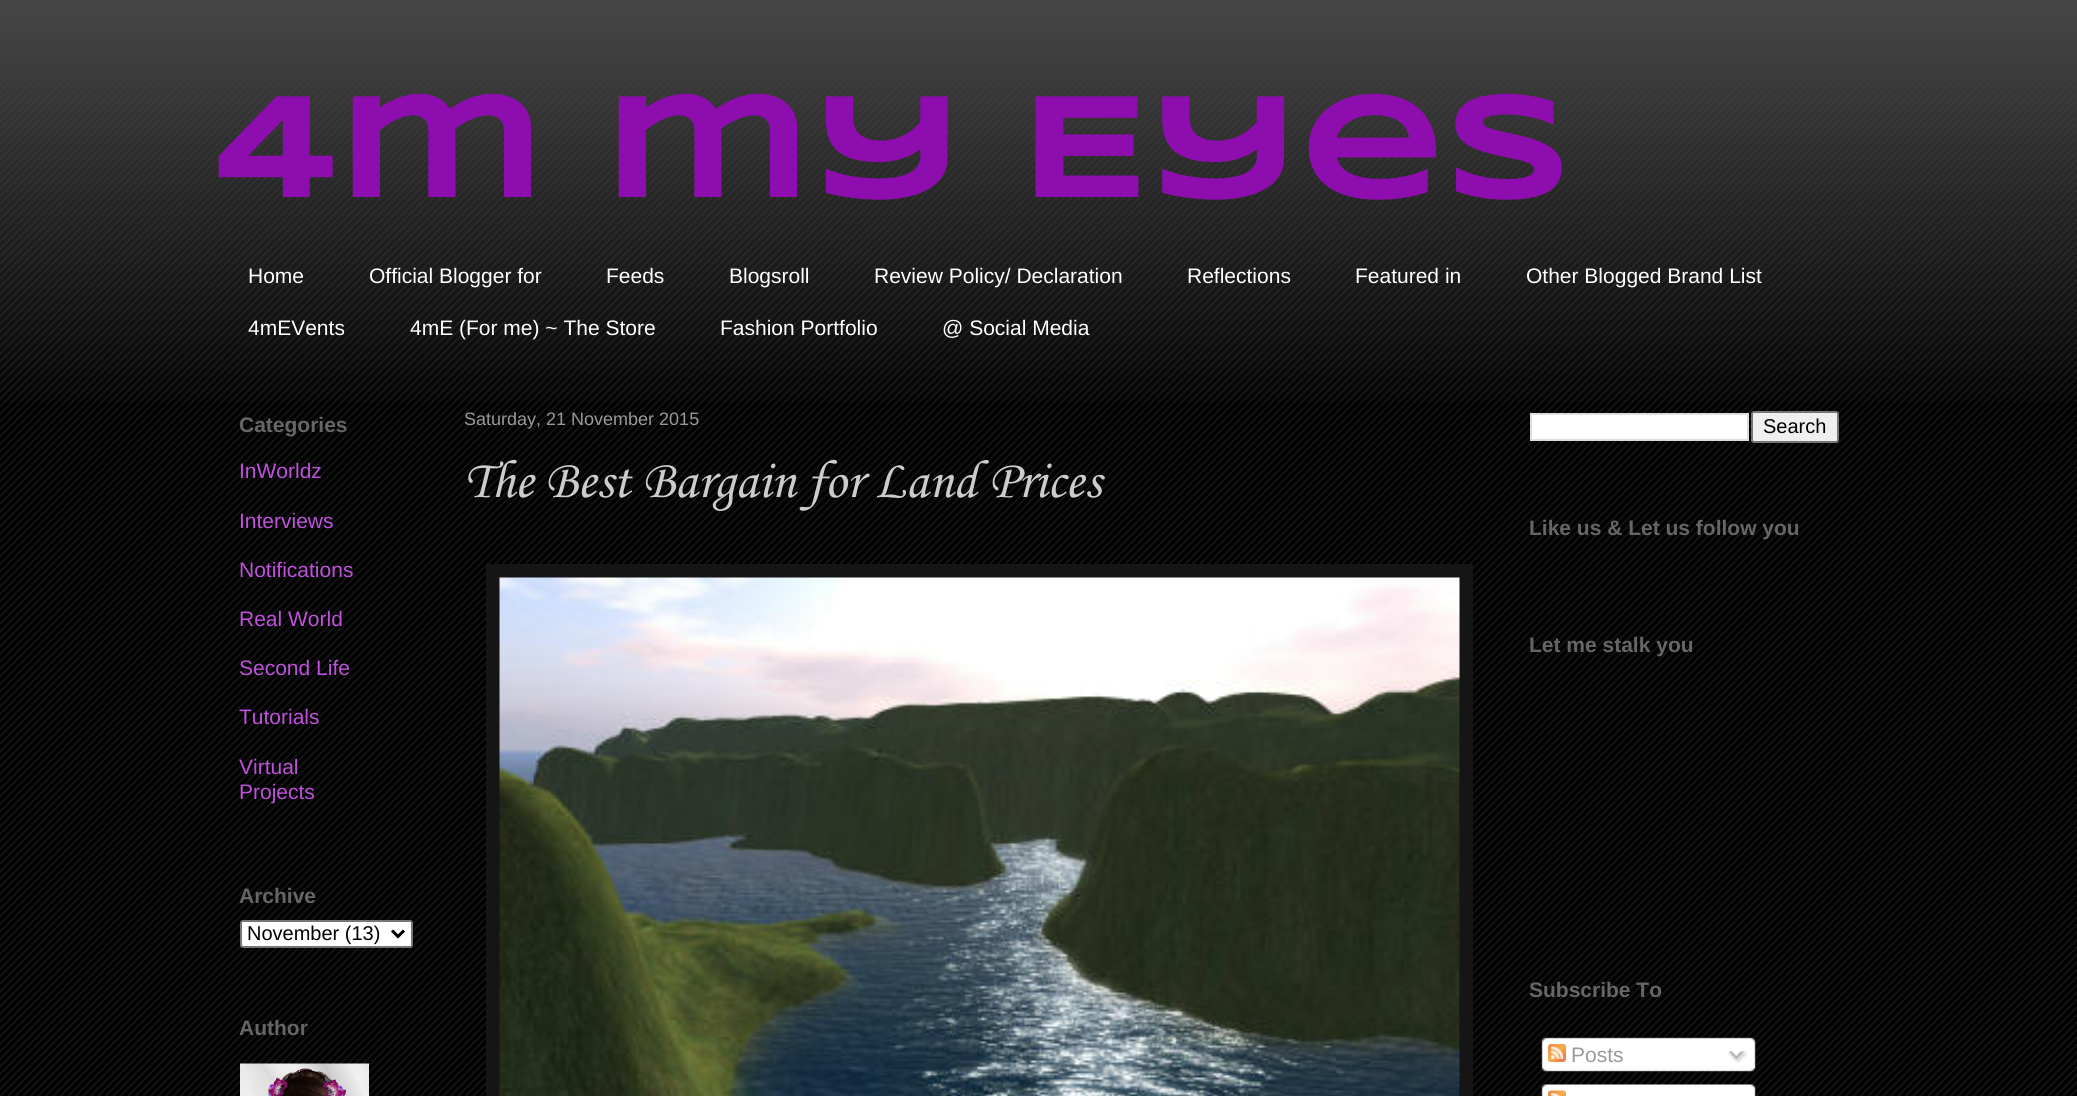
import math
import cairo

surface = cairo.ImageSurface(cairo.Format.RGB24, 2077, 1096)
ctx = cairo.Context(surface)
options = cairo.FontOptions()
options.set_hint_metrics(cairo.HintMetrics.OFF)
options.set_hint_style(cairo.HintStyle.NONE)
ctx.set_font_options(options)
ctx.set_miter_limit(4)


def ink(r, g, b):
    ctx.set_source_rgb(r / 255, g / 255, b / 255)


def write(x, y, s, family, size, color, bold=False, italic=False):
    ctx.select_font_face(family, cairo.FontSlant.ITALIC if italic else cairo.FontSlant.NORMAL, cairo.FontWeight.BOLD if bold else cairo.FontWeight.NORMAL)
    ctx.set_font_size(size)
    ink(*color)
    ctx.move_to(x, y)
    ctx.show_text(s)


def block(x, y, w, h, *color):
    ink(*color)
    ctx.rectangle(x, y, w, h)
    ctx.fill()


def round_path(x, y, w, h, r):
    ctx.new_sub_path()
    for i, (u, v) in enumerate([(x + w - r, y + h - r), (x + r, y + h - r), (x + r, y + r), (x + w - r, y + r)]):
        ctx.arc(u, v, r, i * math.pi / 2, (i + 1) * math.pi / 2)
    ctx.close_path()


def paste(path, x, y, w, h):
    ctx.save()
    ctx.set_source_surface(cairo.ImageSurface.create_from_png(path), x, y)
    ctx.rectangle(x, y, w, h)
    ctx.fill()
    ctx.restore()


s1 = dict(family="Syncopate", size=150, color=(142, 13, 174), bold=True)
s2 = dict(family="Liberation Sans", size=21, color=(255, 255, 255))
s3 = dict(family="Liberation Sans", size=21, color=(102, 102, 102), bold=True)
s4 = dict(family="Liberation Sans", size=21, color=(192, 81, 221))
s5 = dict(family="Liberation Sans", size=20, color=(0, 0, 0))
s6 = dict(family="Liberation Sans", size=18, color=(153, 153, 153))
s7 = dict(family="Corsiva", size=54, color=(204, 204, 204))
s8 = dict(family="Liberation Sans", size=21, color=(153, 153, 153))

ink(0, 0, 0)
ctx.paint()
paste("pic1.png", 0, 20, 2077, 1076)
paste("pic2.png", 0, 0, 2077, 402)
write(215, 197, "4m my Eyes", **s1)
write(248, 283, "Home", **s2)
write(369, 283, "Official Blogger for", **s2)
write(606, 283, "Feeds", **s2)
write(729, 283, "Blogsroll", **s2)
write(874, 283, "Review Policy/ Declaration", **s2)
write(1187, 283, "Reflections", **s2)
write(1355, 283, "Featured in", **s2)
write(1526, 283, "Other Blogged Brand List", **s2)
write(248, 335, "4mEVents", **s2)
write(410, 335, "4mE (For me) ~ The Store", **s2)
write(720, 335, "Fashion Portfolio", **s2)
write(942, 335, "@ Social Media", **s2)
write(239, 432, "Categories", **s3)
write(239, 478, "InWorldz", **s4)
write(239, 528, "Interviews", **s4)
write(239, 577, "Notifications", **s4)
write(239, 626, "Real World", **s4)
write(239, 675, "Second Life", **s4)
write(239, 724, "Tutorials", **s4)
write(239, 774, "Virtual", **s4)
write(239, 799, "Projects", **s4)
write(239, 903, "Archive", **s3)
ink(255, 255, 255)
round_path(241, 921, 171, 26, 2)
ctx.fill_preserve()
ink(118, 118, 118)
ctx.stroke()
ctx.new_path()
ctx.move_to(392, 930.5)
ctx.line_to(398, 936.5)
ctx.line_to(404, 930.5)
ink(0, 0, 0)
ctx.set_line_width(3)
ctx.stroke()
write(247, 940, "November (13)", **s5)
write(239, 1035, "Author", **s3)
paste("pic3.png", 240, 1063, 129, 33)
write(464, 425, "Saturday, 21 November 2015", **s6)
write(464, 497, "The Best Bargain for Land Prices", **s7)
block(486, 564, 987, 532, 21, 21, 21)
paste("pic4.png", 499, 577, 961, 519)
ink(255, 255, 255)
ctx.rectangle(1531, 414, 217, 26)
ctx.fill_preserve()
ink(221, 221, 221)
ctx.set_line_width(2)
ctx.stroke()
ink(239, 239, 239)
round_path(1752, 412, 86, 30, 2)
ctx.fill_preserve()
ink(118, 118, 118)
ctx.stroke()
write(1763, 433, "Search", **s5)
write(1529, 535, "Like us & Let us follow you", **s3)
write(1529, 652, "Let me stalk you", **s3)
write(1529, 997, "Subscribe To", **s3)
paste("pic5.png", 1541, 1037, 215, 31)
paste("pic6.png", 1548, 1044, 18, 18)
write(1571, 1062, "Posts", **s8)
paste("pic7.png", 1728, 1050, 20, 14)
paste("pic8.png", 1541, 1068, 215, 4)
paste("pic9.png", 1541, 1084, 215, 12)
paste("pic10.png", 1548, 1090, 18, 6)
surface.write_to_png("screenshot.png")
